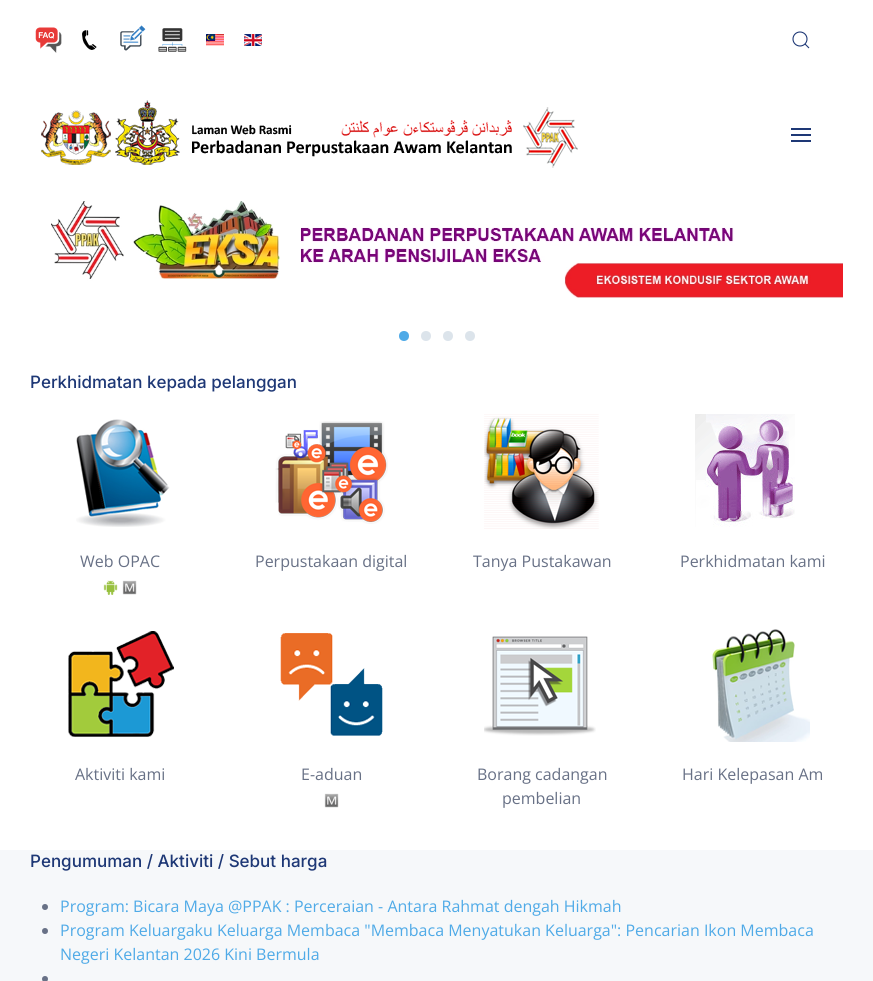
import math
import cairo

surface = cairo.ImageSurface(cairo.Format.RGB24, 873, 981)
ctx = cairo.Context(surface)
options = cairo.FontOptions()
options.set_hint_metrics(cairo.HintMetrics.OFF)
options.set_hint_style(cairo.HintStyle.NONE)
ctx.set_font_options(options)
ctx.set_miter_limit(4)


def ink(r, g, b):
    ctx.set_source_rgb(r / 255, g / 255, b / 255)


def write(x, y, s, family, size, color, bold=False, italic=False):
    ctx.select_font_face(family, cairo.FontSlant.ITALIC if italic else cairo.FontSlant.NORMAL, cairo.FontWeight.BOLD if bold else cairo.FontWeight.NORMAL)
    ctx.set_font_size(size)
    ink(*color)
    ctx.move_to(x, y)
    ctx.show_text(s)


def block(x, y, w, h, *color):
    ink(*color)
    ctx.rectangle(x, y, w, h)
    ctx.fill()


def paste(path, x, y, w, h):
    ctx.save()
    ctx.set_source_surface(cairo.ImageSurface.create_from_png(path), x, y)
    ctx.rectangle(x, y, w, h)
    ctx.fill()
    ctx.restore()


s1 = dict(family="Inter Medium", size=17, color=(30, 56, 118))
s2 = dict(family="Open Sans", size=16, color=(104, 113, 134))
s3 = dict(family="Open Sans", size=16, color=(79, 170, 231))

ink(255, 255, 255)
ctx.paint()
paste("pic1.png", 35, 27, 27, 26)
paste("pic2.png", 82, 30, 15, 20)
paste("pic3.png", 120, 25, 26, 26)
paste("pic4.png", 158, 28, 29, 24)
paste("pic5.png", 206, 34, 18, 12)
paste("pic6.png", 244, 34, 18, 12)
paste("pic7.png", 41, 100, 537, 68)
ctx.arc(800, 39, 7, 0, 2 * math.pi)
ink(30, 56, 118)
ctx.set_line_width(1.1)
ctx.stroke()
ctx.new_path()
ctx.move_to(805, 44)
ctx.line_to(809, 48)
ctx.close_path()
ctx.stroke()
block(791, 128, 20, 2, 30, 56, 118)
block(791, 134, 20, 2, 30, 56, 118)
block(791, 140, 20, 2, 30, 56, 118)
paste("pic8.png", 51, 201, 792, 97)
ink(79, 170, 231)
ctx.arc(404, 336, 5, 0, 2 * math.pi)
ctx.fill()
ink(220, 228, 235)
ctx.arc(426, 336, 5, 0, 2 * math.pi)
ctx.fill()
ctx.arc(448, 336, 5, 0, 2 * math.pi)
ctx.fill()
ctx.arc(470, 336, 5, 0, 2 * math.pi)
ctx.fill()
write(30, 388, "Perkhidmatan kepada pelanggan", **s1)
paste("pic9.png", 76, 419, 94, 108)
write(80, 567, "Web OPAC", **s2)
paste("pic10.png", 103, 580, 15, 15)
paste("pic11.png", 122, 580, 15, 15)
paste("pic12.png", 275, 421, 113, 103)
write(255, 567, "Perpustakaan digital", **s2)
paste("pic13.png", 484, 414, 115, 115)
write(473, 567, "Tanya Pustakawan", **s2)
paste("pic14.png", 695, 414, 100, 113)
write(680, 567, "Perkhidmatan kami", **s2)
paste("pic15.png", 68, 631, 106, 106)
write(75, 780, "Aktiviti kami", **s2)
paste("pic16.png", 280, 633, 103, 103)
write(301, 780, "E-aduan", **s2)
paste("pic17.png", 324, 793, 15, 15)
paste("pic18.png", 484, 636, 112, 100)
write(477, 780, "Borang cadangan", **s2)
write(502, 804, "pembelian", **s2)
paste("pic19.png", 712, 629, 98, 113)
write(682, 780, "Hari Kelepasan Am", **s2)
block(0, 850, 873, 131, 246, 248, 250)
write(30, 867, "Pengumuman / Aktiviti / Sebut harga", **s1)
ink(104, 113, 134)
ctx.new_path()
ctx.arc(45, 907, 3, 0, 2 * math.pi)
ctx.fill()
write(60, 912, "Program: Bicara Maya @PPAK : Perceraian - Antara Rahmat dengah Hikmah", **s3)
ink(104, 113, 134)
ctx.new_path()
ctx.arc(45, 931, 3, 0, 2 * math.pi)
ctx.fill()
write(60, 936, "Program Keluargaku Keluarga Membaca \"Membaca Menyatukan Keluarga\": Pencarian Ikon Membaca", **s3)
write(60, 960, "Negeri Kelantan 2026 Kini Bermula", **s3)
ink(104, 113, 134)
ctx.new_path()
ctx.arc(45, 979, 3, 0, 2 * math.pi)
ctx.fill()
surface.write_to_png("screenshot.png")
